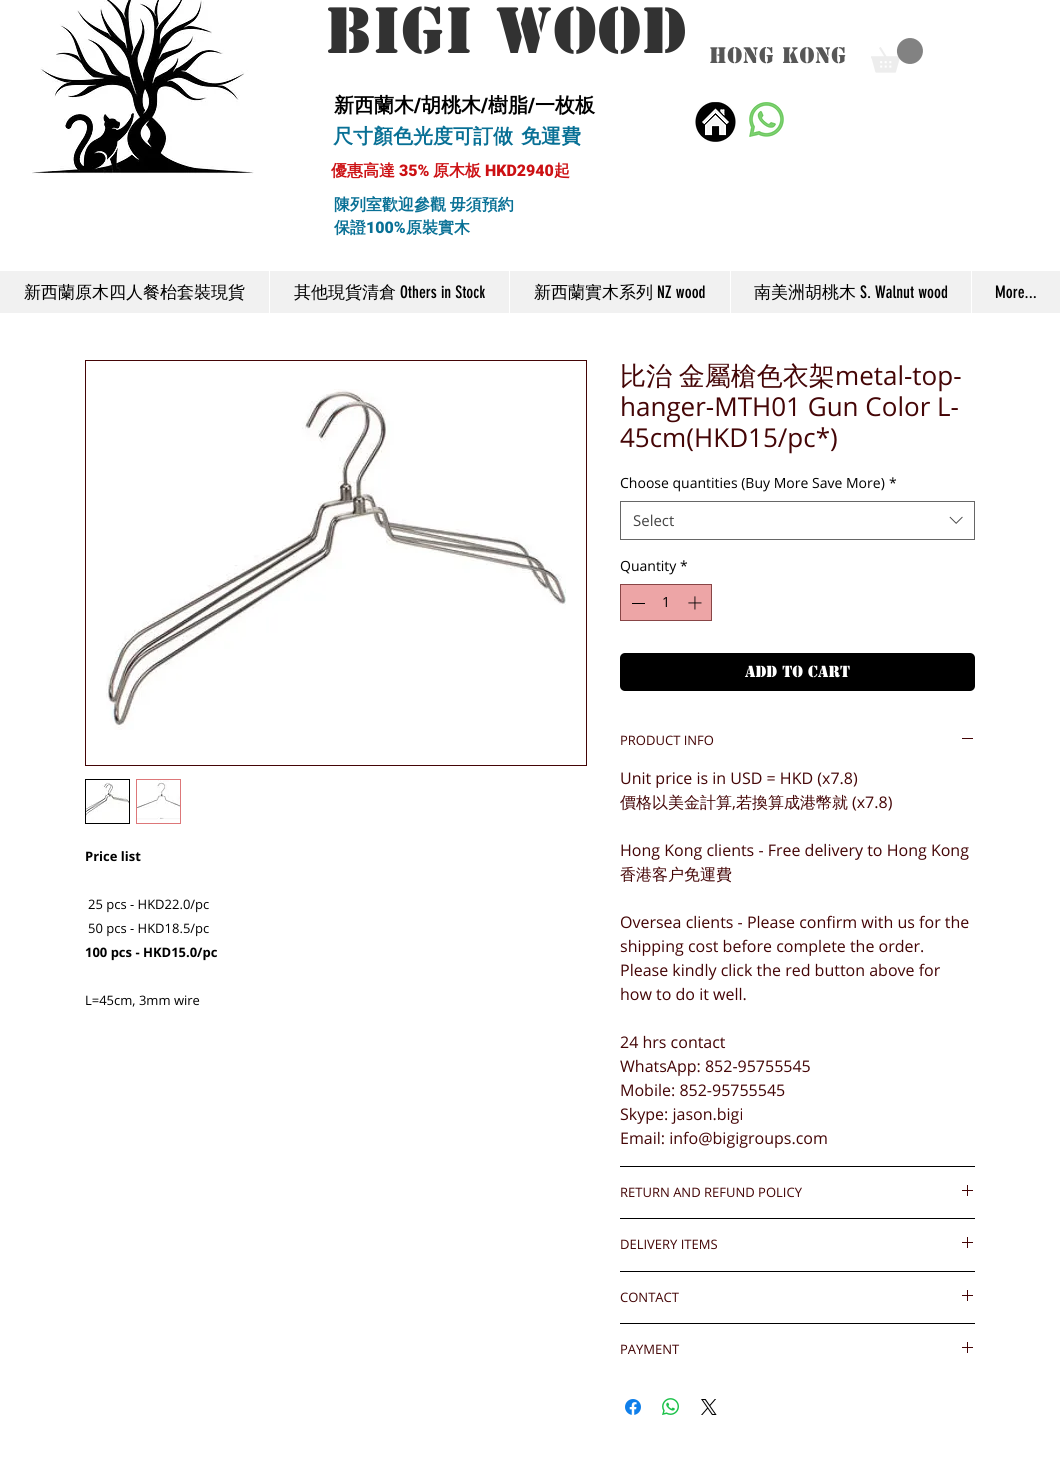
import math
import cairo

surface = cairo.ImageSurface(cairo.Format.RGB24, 1060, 1483)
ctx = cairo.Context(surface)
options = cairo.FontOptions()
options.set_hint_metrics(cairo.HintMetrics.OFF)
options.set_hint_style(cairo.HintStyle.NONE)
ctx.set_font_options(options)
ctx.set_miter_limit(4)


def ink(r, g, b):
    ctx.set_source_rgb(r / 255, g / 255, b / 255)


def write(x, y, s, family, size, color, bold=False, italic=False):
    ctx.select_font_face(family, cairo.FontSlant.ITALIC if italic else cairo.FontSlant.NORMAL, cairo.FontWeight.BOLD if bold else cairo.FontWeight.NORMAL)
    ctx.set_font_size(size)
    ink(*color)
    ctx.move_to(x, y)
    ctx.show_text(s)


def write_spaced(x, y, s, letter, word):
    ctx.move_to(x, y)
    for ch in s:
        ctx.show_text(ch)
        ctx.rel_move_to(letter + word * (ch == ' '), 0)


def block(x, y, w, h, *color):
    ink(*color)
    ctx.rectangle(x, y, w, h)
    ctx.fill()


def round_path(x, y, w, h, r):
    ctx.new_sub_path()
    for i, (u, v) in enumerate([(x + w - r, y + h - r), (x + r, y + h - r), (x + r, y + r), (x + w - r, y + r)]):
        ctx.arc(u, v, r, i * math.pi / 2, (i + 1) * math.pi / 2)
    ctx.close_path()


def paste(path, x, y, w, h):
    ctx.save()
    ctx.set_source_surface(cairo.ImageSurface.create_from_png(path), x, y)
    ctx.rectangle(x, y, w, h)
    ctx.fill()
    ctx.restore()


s1 = dict(family="WenQuanYi Zen Hei", size=20, color=(0, 0, 0), bold=True)
s2 = dict(family="Roboto Black", size=20, color=(0, 0, 0))
s3 = dict(family="WenQuanYi Zen Hei", size=20, color=(8, 112, 149), bold=True)
s4 = dict(family="WenQuanYi Zen Hei", size=16, color=(204, 16, 19), bold=True)
s5 = dict(family="Roboto Black", size=16, color=(204, 16, 19))
s6 = dict(family="WenQuanYi Zen Hei", size=16, color=(8, 112, 149), bold=True)
s7 = dict(family="Roboto Black", size=16, color=(8, 112, 149))
s8 = dict(family="WenQuanYi Zen Hei Medium", size=17, color=(0, 0, 0))
s9 = dict(family="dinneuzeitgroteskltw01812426", size=17, color=(0, 0, 0))
s10 = dict(family="Open Sans", size=13, color=(0, 0, 0), bold=True)
s11 = dict(family="Open Sans", size=13, color=(0, 0, 0))
s12 = dict(family="Open Sans", size=26, color=(68, 5, 6))
s13 = dict(family="Open Sans", size=14, color=(0, 0, 0))
s14 = dict(family="Open Sans", size=15, color=(68, 68, 68))
s15 = dict(family="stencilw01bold", size=15, color=(255, 255, 255), bold=True)
s16 = dict(family="Open Sans", size=13, color=(68, 5, 6))
s17 = dict(family="Open Sans", size=16, color=(68, 5, 6))
s18 = dict(family="WenQuanYi Zen Hei Medium", size=16, color=(68, 5, 6))

ink(255, 255, 255)
ctx.paint()
paste("pic1.png", 32, 0, 222, 174)
ctx.select_font_face("stencilw01bold", cairo.FontSlant.NORMAL, cairo.FontWeight.BOLD)
ctx.set_font_size(61)
ink(50, 50, 50)
write_spaced(326, 53, "BIGI wood", 1.25, 0)
ctx.set_font_size(21)
ink(86, 86, 86)
write_spaced(709, 63, "Hong Kong", 0.5, 0)
paste("pic2.png", 871, 38, 52, 35)
write(334, 112, "新西蘭木", **s1)
write(414, 112, "/", **s2)
write(421, 112, "胡桃木", **s1)
write(481, 112, "/", **s2)
write(488, 112, "樹脂", **s1)
write(528, 112, "/", **s2)
write(535, 112, "一枚板", **s1)
paste("pic3.png", 695, 102, 41, 40)
paste("pic4.png", 749, 102, 35, 35)
write(333, 143, "尺寸顏色光度可訂做", **s3)
write(521, 143, "免運費", **s3)
write(331, 176, "優惠高達", **s4)
write(399, 176, "35%", **s5)
write(433, 176, "原木板", **s4)
write(485, 176, "HKD2940", **s5)
write(554, 176, "起", **s4)
ink(8, 112, 149)
write_spaced(334, 210, "陳列室歡迎參觀 毋須預約", 0, -1)
write(334, 233, "保證", **s6)
write(366, 233, "100%", **s7)
write(406, 233, "原裝實木", **s6)
block(0, 271, 1060, 42, 241, 241, 241)
write(24, 298, "新西蘭原木四人餐枱套裝現貨", **s8)
block(269, 271, 1, 42, 255, 255, 255)
write(294, 298, "其他現貨清倉", **s8)
write(400, 298, "Others in Stock", **s9)
block(509, 271, 1, 42, 255, 255, 255)
write(534, 298, "新西蘭實木系列", **s8)
write(657, 298, "NZ wood", **s9)
block(730, 271, 1, 42, 255, 255, 255)
write(754, 298, "南美洲胡桃木", **s8)
write(860, 298, "S. Walnut wood", **s9)
block(971, 271, 1, 42, 255, 255, 255)
write(995, 298, "More...", **s9)
ctx.rectangle(85.5, 360.5, 501, 405)
ink(68, 5, 6)
ctx.set_line_width(1)
ctx.stroke()
paste("pic5.png", 106, 389, 460, 341)
ctx.rectangle(85.5, 779.5, 44, 44)
ink(0, 0, 0)
ctx.stroke()
paste("pic6.png", 86, 780, 43, 43)
block(136, 779, 45, 45, 221, 119, 121)
paste("pic7.png", 137, 780, 43, 43)
write(85, 861, "Price list", **s10)
write(88, 909, "25 pcs - HKD22.0/pc", **s11)
write(88, 933, "50 pcs - HKD18.5/pc", **s11)
write(85, 957, "100 pcs - HKD15.0/pc", **s10)
write(85, 1005, "L=45cm, 3mm wire", **s11)
ctx.select_font_face("WenQuanYi Zen Hei Medium")
ctx.set_font_size(26)
ink(68, 5, 6)
write_spaced(620, 385, "比治 金屬槍色衣架", 0, -1)
write(835, 385, "metal-top-", **s12)
write(620, 416, "hanger-MTH01 Gun Color L-", **s12)
write(620, 447, "45cm(HKD15/pc*)", **s12)
write(620, 488, "Choose quantities (Buy More Save More)", **s13)
write(889, 488, "*", **s13)
ctx.rectangle(620.5, 501.5, 354, 38)
ink(102, 102, 102)
ctx.stroke()
write(633, 526, "Select", **s14)
paste("pic8.png", 949, 516, 14, 8)
write(620, 571, "Quantity", **s13)
write(680, 571, "*", **s13)
ink(237, 165, 166)
ctx.rectangle(620.5, 584.5, 91, 36)
ctx.fill_preserve()
ink(136, 69, 70)
ctx.stroke()
block(632, 603, 13, 1, 0, 0, 0)
write(662, 607, "1", **s13)
paste("pic9.png", 688, 596, 14, 14)
round_path(620, 653, 355, 38, 5)
ctx.fill()
write(745, 677, "ADD TO CART", **s15)
block(620, 1166, 355, 1, 0, 0, 0)
write(620, 745, "PRODUCT INFO", **s16)
block(962, 738, 11, 1, 68, 5, 6)
write(620, 784, "Unit price is in USD = HKD (x7.8)", **s17)
write(620, 808, "價格以美金計算", **s18)
write(732, 808, ",", **s17)
write(736, 808, "若換算成港幣就", **s18)
write(852, 808, "(x7.8)", **s17)
write(620, 856, "Hong Kong clients - Free delivery to Hong Kong", **s17)
write(620, 880, "香港客户免運費", **s18)
write(620, 928, "Oversea clients - Please confirm with us for the", **s17)
write(620, 952, "shipping cost before complete the order.", **s17)
write(620, 976, "Please kindly click the red button above for", **s17)
write(620, 1000, "how to do it well.", **s17)
write(620, 1048, "24 hrs contact", **s17)
write(620, 1072, "WhatsApp: 852-95755545", **s17)
write(620, 1096, "Mobile: 852-95755545", **s17)
write(620, 1120, "Skype: jason.bigi", **s17)
write(620, 1144, "Email: info@bigigroups.com", **s17)
block(620, 1218, 355, 1, 0, 0, 0)
write(620, 1197, "RETURN AND REFUND POLICY", **s16)
paste("pic10.png", 962, 1185, 11, 11)
block(620, 1271, 355, 1, 0, 0, 0)
write(620, 1249, "DELIVERY ITEMS", **s16)
paste("pic10.png", 962, 1237, 11, 11)
block(620, 1323, 355, 1, 0, 0, 0)
write(620, 1302, "CONTACT", **s16)
paste("pic10.png", 962, 1290, 11, 11)
write(620, 1354, "PAYMENT", **s16)
paste("pic10.png", 962, 1342, 11, 11)
paste("pic11.png", 625, 1399, 16, 16)
paste("pic12.png", 662, 1398, 17, 17)
paste("pic13.png", 701, 1399, 16, 16)
surface.write_to_png("screenshot.png")
